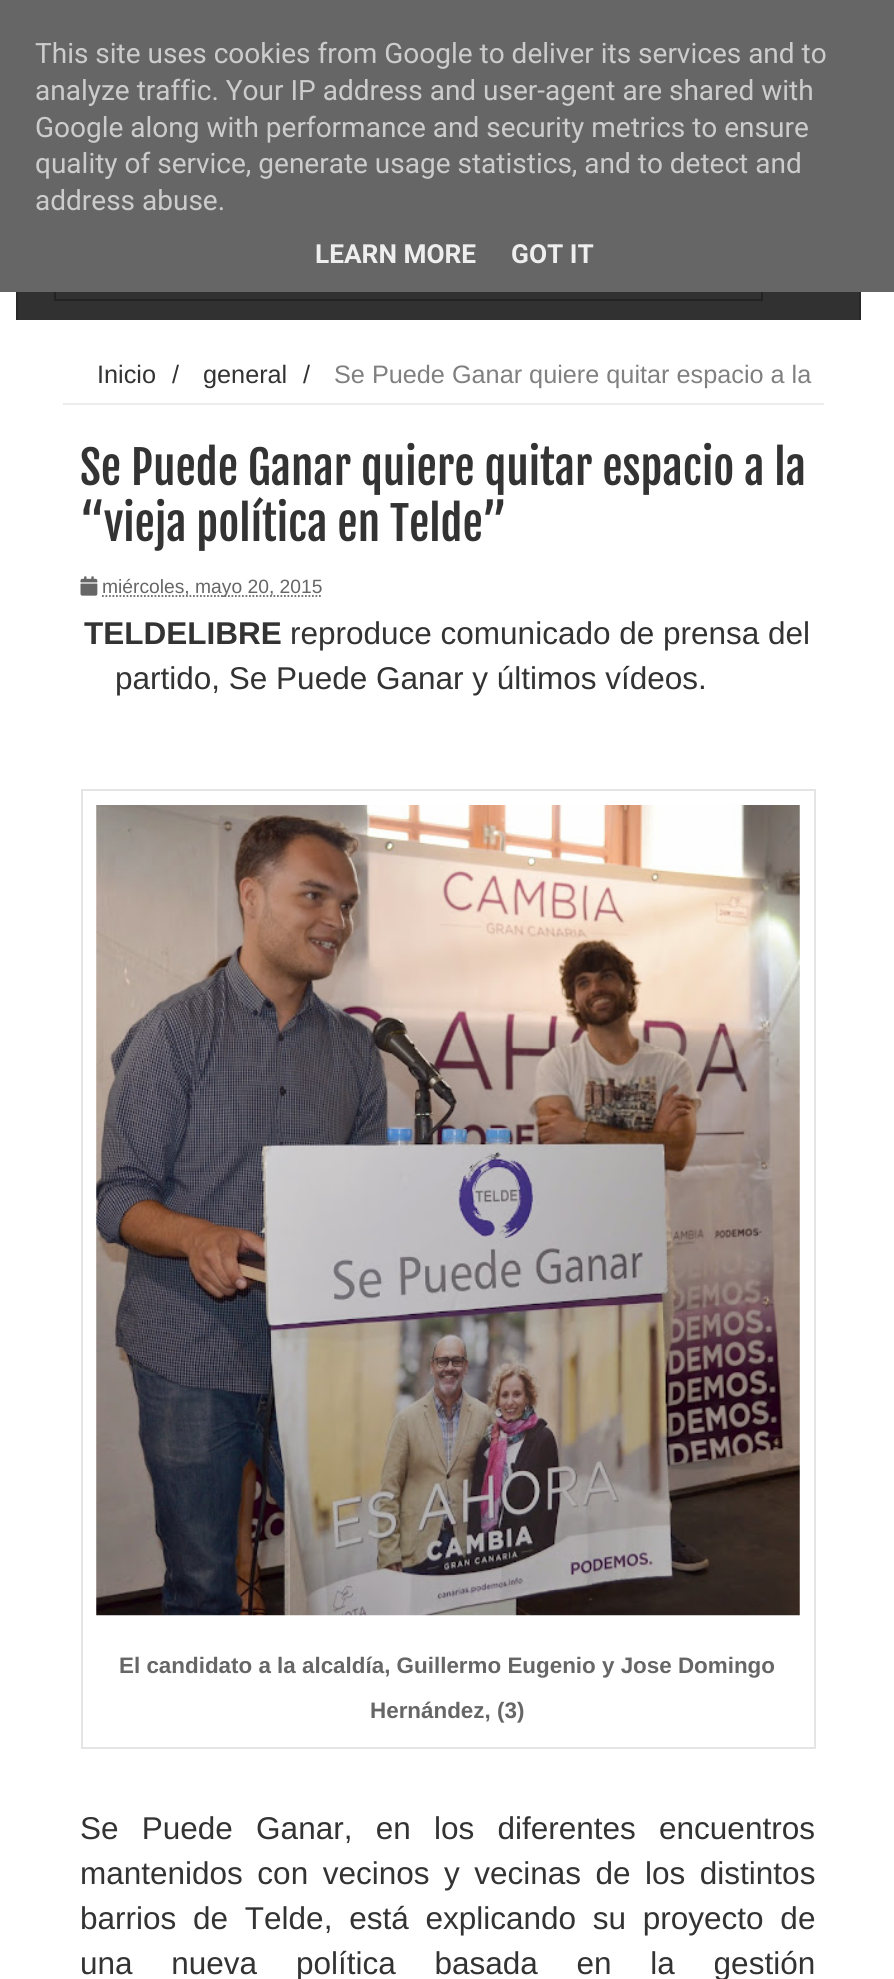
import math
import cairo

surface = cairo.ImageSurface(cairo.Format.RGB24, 894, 1979)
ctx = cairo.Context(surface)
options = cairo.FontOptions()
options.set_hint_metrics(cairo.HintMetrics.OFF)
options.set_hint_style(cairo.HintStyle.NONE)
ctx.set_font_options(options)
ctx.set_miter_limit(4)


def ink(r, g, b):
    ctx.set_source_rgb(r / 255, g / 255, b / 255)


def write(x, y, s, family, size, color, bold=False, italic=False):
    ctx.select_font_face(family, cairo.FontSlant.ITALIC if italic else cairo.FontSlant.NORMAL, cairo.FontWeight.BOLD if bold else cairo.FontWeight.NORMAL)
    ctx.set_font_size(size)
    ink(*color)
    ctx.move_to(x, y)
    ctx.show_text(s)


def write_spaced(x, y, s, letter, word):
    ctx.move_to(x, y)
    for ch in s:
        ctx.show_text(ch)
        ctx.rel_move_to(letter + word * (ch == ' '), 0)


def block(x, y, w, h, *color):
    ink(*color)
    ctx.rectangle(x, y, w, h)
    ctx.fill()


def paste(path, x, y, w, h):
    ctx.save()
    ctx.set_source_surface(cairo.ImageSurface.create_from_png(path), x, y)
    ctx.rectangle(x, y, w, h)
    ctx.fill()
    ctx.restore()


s1 = dict(family="Roboto", size=28, color=(204, 204, 204))
s2 = dict(family="Roboto", size=26.25, color=(238, 238, 238), bold=True)
s3 = dict(family="Liberation Sans", size=25.25, color=(51, 51, 51))
s4 = dict(family="Liberation Sans", size=25.25, color=(128, 128, 128))
s5 = dict(family="Fjalla One", size=45.5, color=(51, 51, 51))
s6 = dict(family="Liberation Sans", size=19.25, color=(102, 102, 102))
s7 = dict(family="Liberation Sans", size=31.5, color=(51, 51, 51), bold=True)
s8 = dict(family="Liberation Sans", size=31.5, color=(51, 51, 51))
s9 = dict(family="Liberation Sans", size=22.4, color=(102, 102, 102), bold=True)

ink(255, 255, 255)
ctx.paint()
block(18, 292, 841, 28, 49, 49, 49)
ctx.rectangle(55, 241, 707, 59)
ink(35, 35, 35)
ctx.stroke()
block(0, 0, 894, 292, 102, 102, 102)
write(35, 63, "This site uses cookies from Google to deliver its services and to", **s1)
write(35, 100, "analyze traffic. Your IP address and user-agent are shared with", **s1)
write(35, 137, "Google along with performance and security metrics to ensure", **s1)
write(35, 173, "quality of service, generate usage statistics, and to detect and", **s1)
write(35, 210, "address abuse.", **s1)
write(315, 263, "LEARN MORE", **s2)
write(511, 263, "GOT IT", **s2)
block(859, 292, 2, 28, 39, 39, 39)
block(16, 292, 2, 28, 39, 39, 39)
block(63, 403, 761, 2, 236, 236, 236)
write(97, 383, "Inicio", **s3)
write(172, 383, "/", **s3)
write(203, 383, "general", **s3)
write(303, 383, "/", **s3)
write(334, 383, "Se Puede Ganar quiere quitar espacio a la", **s4)
write(80, 485, "Se Puede Ganar quiere quitar espacio a la", **s5)
write(80, 541, "“vieja política en Telde”", **s5)
paste("pic1.png", 80, 576, 18, 20)
ctx.new_path()
ctx.move_to(102, 596)
ctx.line_to(322, 596)
ink(102, 102, 102)
ctx.set_line_width(1.8)
ctx.set_dash([1.75, 1.75])
ctx.stroke()
write(102, 593, "miércoles, mayo 20, 2015", **s6)
write(84, 644, "TELDELIBRE", **s7)
write(290, 644, "reproduce comunicado de prensa del", **s8)
write(115, 689, "partido, Se Puede Ganar y últimos vídeos.", **s8)
block(81, 789, 735, 2, 229, 229, 229)
block(814, 789, 2, 959, 229, 229, 229)
block(81, 1747, 735, 2, 229, 229, 229)
block(81, 789, 2, 959, 229, 229, 229)
paste("pic2.png", 96, 805, 704, 811)
write(119, 1673, "El candidato a la alcaldía, Guillermo Eugenio y Jose Domingo", **s9)
write(370, 1718, "Hernández, (3)", **s9)
ctx.select_font_face("Liberation Sans")
ctx.set_font_size(31.5)
ink(51, 51, 51)
write_spaced(80, 1839, "Se Puede Ganar, en los diferentes encuentros", 0, 14.5)
write_spaced(80, 1884, "mantenidos con vecinos y vecinas de los distintos", 0, 5.75)
write_spaced(80, 1929, "barrios de Telde, está explicando su proyecto de", 0, 8)
write_spaced(80, 1974, "una nueva política basada en la gestión", 0, 30)
surface.write_to_png("screenshot.png")
